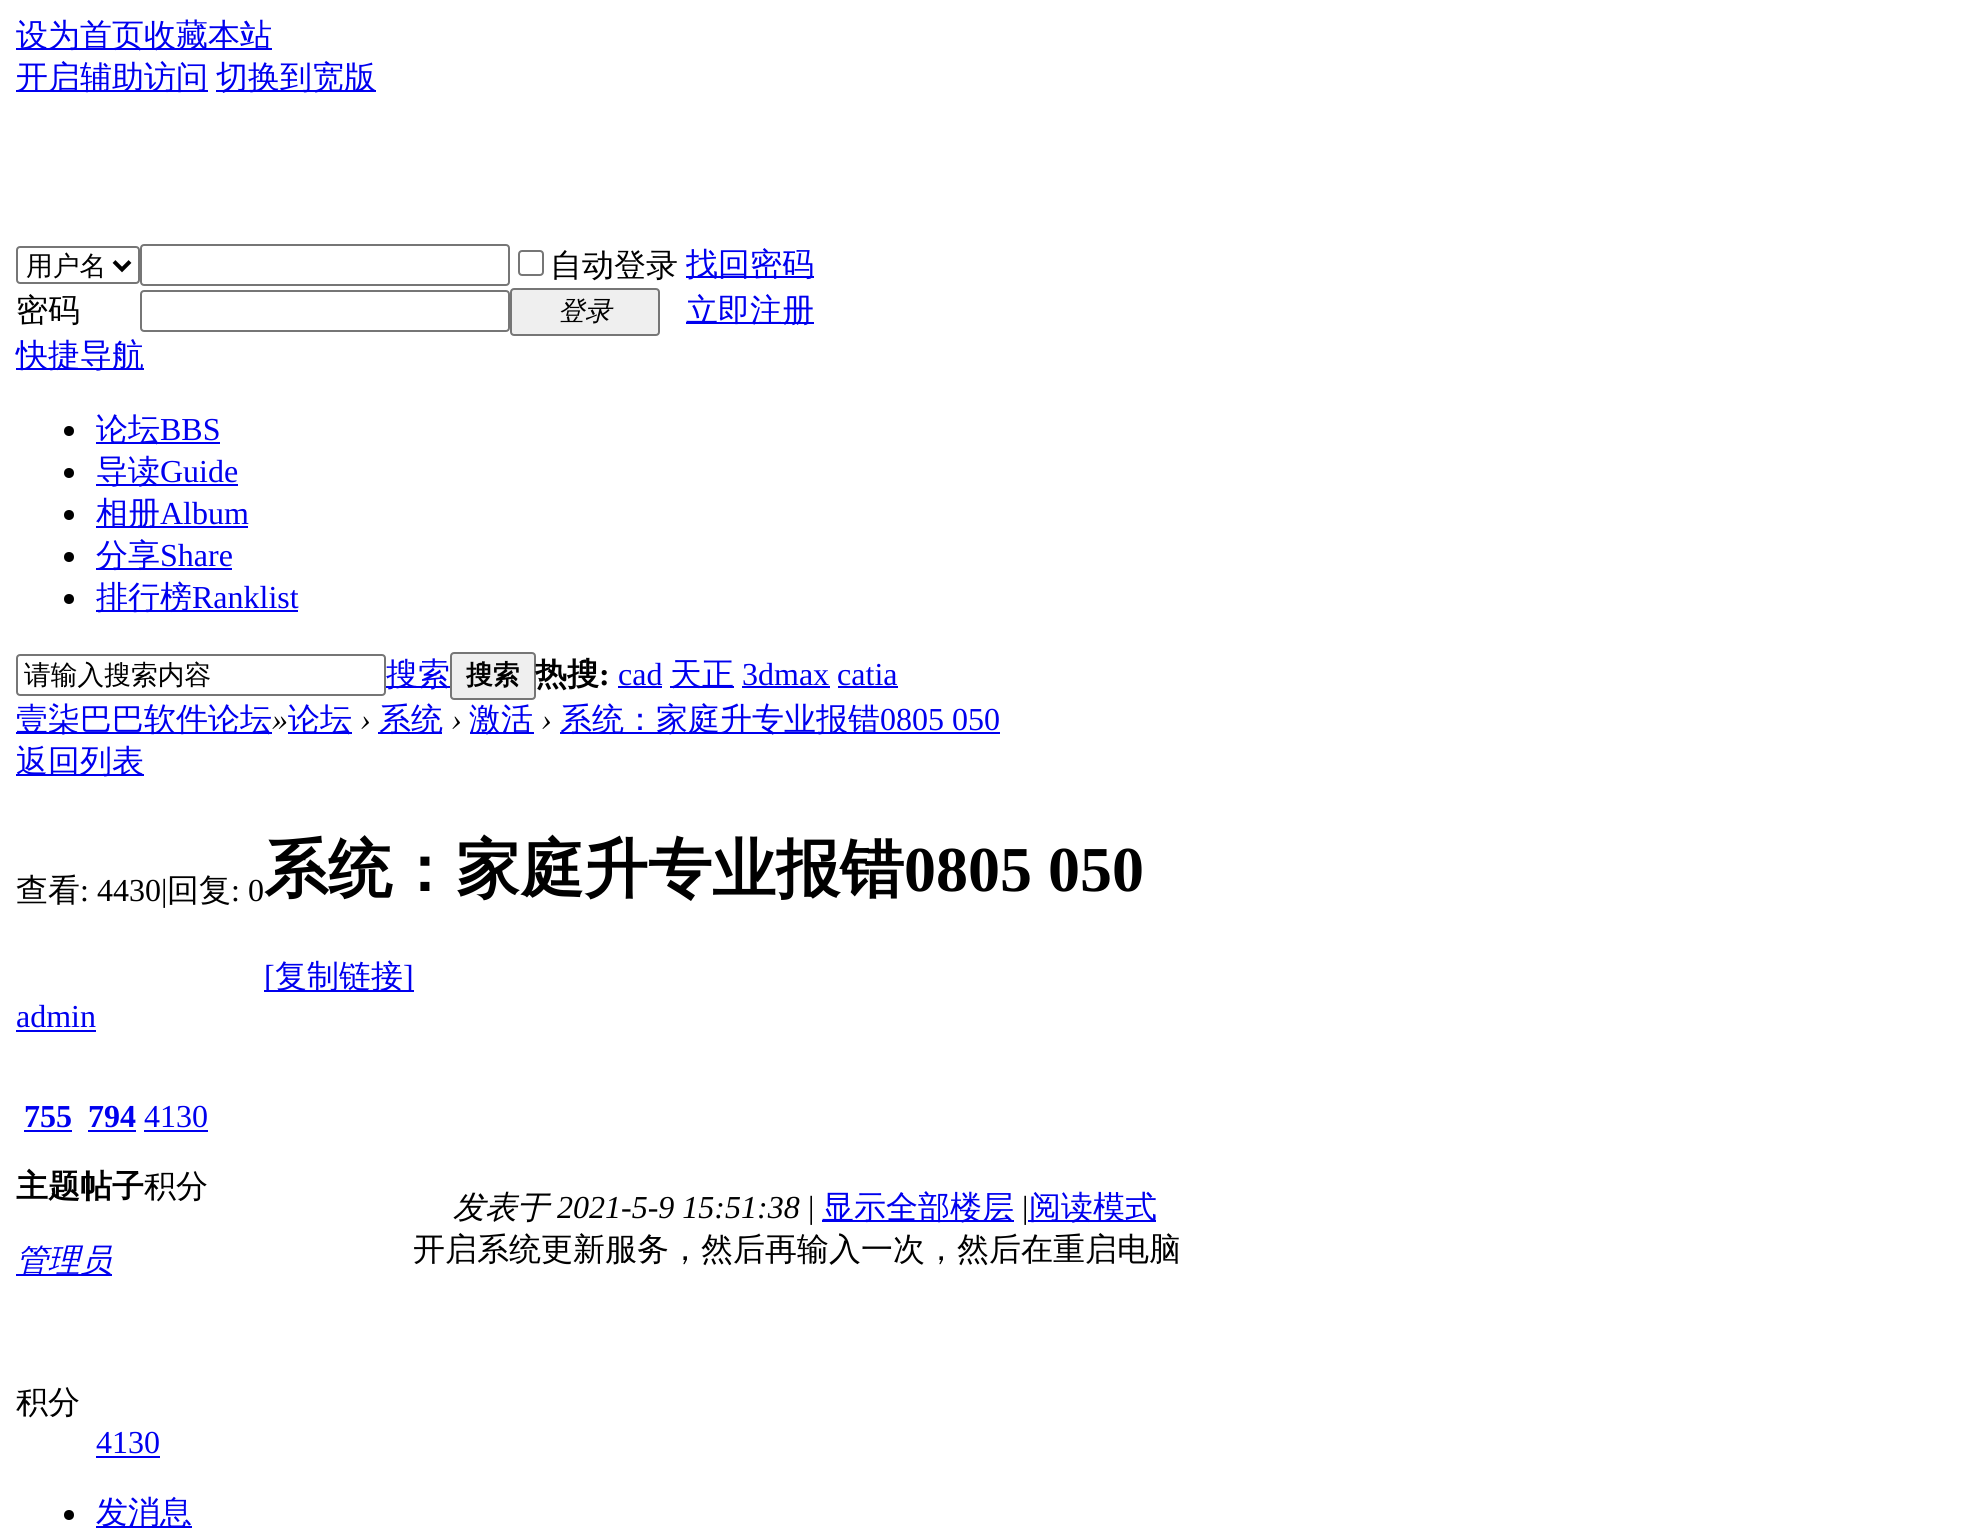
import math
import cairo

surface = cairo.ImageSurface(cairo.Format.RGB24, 1986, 1539)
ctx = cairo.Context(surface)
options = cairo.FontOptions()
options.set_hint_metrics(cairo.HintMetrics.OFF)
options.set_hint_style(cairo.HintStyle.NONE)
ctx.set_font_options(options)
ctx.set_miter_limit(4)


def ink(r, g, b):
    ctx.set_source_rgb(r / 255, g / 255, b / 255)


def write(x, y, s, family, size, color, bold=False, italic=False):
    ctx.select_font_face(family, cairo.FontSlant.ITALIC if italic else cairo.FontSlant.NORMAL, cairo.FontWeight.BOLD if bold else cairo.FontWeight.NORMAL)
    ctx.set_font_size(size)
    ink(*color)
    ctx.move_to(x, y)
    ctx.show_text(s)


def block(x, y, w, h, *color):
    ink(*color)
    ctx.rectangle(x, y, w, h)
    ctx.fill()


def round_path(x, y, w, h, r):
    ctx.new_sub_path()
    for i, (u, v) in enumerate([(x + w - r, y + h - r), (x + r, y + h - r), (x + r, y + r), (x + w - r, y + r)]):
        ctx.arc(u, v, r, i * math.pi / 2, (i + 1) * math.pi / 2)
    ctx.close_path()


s1 = dict(family="WenQuanYi Zen Hei Medium", size=32, color=(0, 0, 238))
s2 = dict(family="WenQuanYi Zen Hei Medium", size=26.75, color=(0, 0, 0))
s3 = dict(family="WenQuanYi Zen Hei Medium", size=32, color=(0, 0, 0))
s4 = dict(family="WenQuanYi Zen Hei Medium", size=26.75, color=(0, 0, 0), italic=True)
s5 = dict(family="Liberation Serif", size=32, color=(0, 0, 238))
s6 = dict(family="WenQuanYi Zen Hei", size=26.75, color=(0, 0, 0), bold=True)
s7 = dict(family="WenQuanYi Zen Hei", size=32, color=(0, 0, 0), bold=True)
s8 = dict(family="Liberation Serif", size=32, color=(0, 0, 0), bold=True)
s9 = dict(family="Liberation Serif", size=32, color=(0, 0, 0), italic=True)
s10 = dict(family="Liberation Serif", size=32, color=(0, 0, 0))
s11 = dict(family="WenQuanYi Zen Hei", size=64, color=(0, 0, 0), bold=True)
s12 = dict(family="Liberation Serif", size=64, color=(0, 0, 0), bold=True)
s13 = dict(family="Liberation Serif", size=32, color=(0, 0, 238), bold=True)
s14 = dict(family="WenQuanYi Zen Hei Medium", size=32, color=(0, 0, 238), italic=True)
s15 = dict(family="WenQuanYi Zen Hei Medium", size=32, color=(0, 0, 0), italic=True)

ink(255, 255, 255)
ctx.paint()
block(16, 48, 256, 2, 0, 0, 238)
write(16, 46, "设为首页收藏本站", **s1)
block(16, 90, 192, 2, 0, 0, 238)
write(16, 88, "开启辅助访问", **s1)
block(216, 90, 160, 2, 0, 0, 238)
write(216, 88, "切换到宽版", **s1)
round_path(17, 247, 122, 36, 3)
ink(118, 118, 118)
ctx.stroke()
ctx.new_path()
ctx.move_to(114, 261.5)
ctx.line_to(122, 269.5)
ctx.line_to(130, 261.5)
ink(0, 0, 0)
ctx.set_line_width(4)
ctx.stroke()
write(26, 275, "用户名", **s2)
round_path(141, 245, 368, 40, 3)
ink(118, 118, 118)
ctx.set_line_width(2)
ctx.stroke()
round_path(519, 251, 24, 24, 3)
ctx.stroke()
write(550, 276, "自动登录", **s3)
block(686, 276, 128, 2, 0, 0, 238)
write(686, 275, "找回密码", **s1)
write(16, 321, "密码", **s3)
round_path(141, 291, 368, 40, 3)
ink(118, 118, 118)
ctx.stroke()
ink(239, 239, 239)
round_path(511, 289, 148, 46, 3)
ctx.fill_preserve()
ink(118, 118, 118)
ctx.stroke()
write(558, 320, "登录", **s4)
block(686, 322, 128, 2, 0, 0, 238)
write(686, 321, "立即注册", **s1)
block(16, 368, 128, 2, 0, 0, 238)
write(16, 366, "快捷导航", **s1)
ink(0, 0, 0)
ctx.new_path()
ctx.arc(69, 431, 5, 0, 2 * math.pi)
ctx.fill()
block(96, 442, 124, 2, 0, 0, 238)
write(96, 440, "论坛", **s1)
write(160, 440, "BBS", **s5)
ink(0, 0, 0)
ctx.new_path()
ctx.arc(69, 473, 5, 0, 2 * math.pi)
ctx.fill()
block(96, 484, 142, 2, 0, 0, 238)
write(96, 482, "导读", **s1)
write(160, 482, "Guide", **s5)
ink(0, 0, 0)
ctx.new_path()
ctx.arc(69, 515, 5, 0, 2 * math.pi)
ctx.fill()
block(96, 526, 152, 2, 0, 0, 238)
write(96, 524, "相册", **s1)
write(160, 524, "Album", **s5)
ink(0, 0, 0)
ctx.new_path()
ctx.arc(69, 557, 5, 0, 2 * math.pi)
ctx.fill()
block(96, 568, 136, 2, 0, 0, 238)
write(96, 566, "分享", **s1)
write(160, 566, "Share", **s5)
ink(0, 0, 0)
ctx.new_path()
ctx.arc(69, 599, 5, 0, 2 * math.pi)
ctx.fill()
block(96, 610, 202, 2, 0, 0, 238)
write(96, 608, "排行榜", **s1)
write(192, 608, "Ranklist", **s5)
round_path(17, 655, 368, 40, 3)
ink(118, 118, 118)
ctx.stroke()
write(24, 684, "请输入搜索内容", **s2)
block(386, 686, 64, 2, 0, 0, 238)
write(386, 685, "搜索", **s1)
ink(239, 239, 239)
round_path(451, 653, 84, 46, 3)
ctx.fill_preserve()
ink(118, 118, 118)
ctx.stroke()
write(466, 684, "搜索", **s6)
write(535, 685, "热搜", **s7)
write(599, 685, ":", **s8)
write(618, 685, "cad", **s5)
block(618, 686, 44, 2, 0, 0, 238)
block(670, 686, 64, 2, 0, 0, 238)
write(670, 685, "天正", **s1)
write(742, 685, "3dmax catia", **s5)
block(742, 686, 88, 2, 0, 0, 238)
block(838, 686, 60, 2, 0, 0, 238)
block(16, 732, 256, 2, 0, 0, 238)
write(16, 730, "壹柒巴巴软件论坛", **s1)
write(272, 730, "»", **s9)
block(288, 732, 64, 2, 0, 0, 238)
write(288, 730, "论坛", **s1)
write(360, 730, "›", **s9)
block(378, 732, 64, 2, 0, 0, 238)
write(379, 730, "系统", **s1)
write(451, 730, "›", **s9)
block(470, 732, 64, 2, 0, 0, 238)
write(469, 730, "激活", **s1)
write(541, 730, "›", **s9)
block(560, 732, 440, 2, 0, 0, 238)
write(560, 730, "系统：家庭升专业报错", **s1)
write(880, 730, "0805 050", **s5)
block(16, 774, 128, 2, 0, 0, 238)
write(16, 772, "返回列表", **s1)
write(16, 901, "查看", **s3)
write(80, 901, ": 4430|", **s10)
write(167, 901, "回复", **s3)
write(231, 901, ": 0", **s10)
write(264, 891, "系统：家庭升专业报错", **s11)
write(904, 891, "0805 050", **s12)
block(264, 990, 150, 2, 0, 0, 238)
write(264, 987, "[", **s5)
write(275, 987, "复制链接", **s1)
write(403, 987, "]", **s5)
write(16, 1027, "admin", **s5)
block(16, 1030, 80, 2, 0, 0, 238)
write(88, 1127, "794", **s13)
block(88, 1130, 48, 2, 0, 0, 238)
write(144, 1127, "4130", **s5)
block(144, 1130, 64, 2, 0, 0, 238)
write(144, 1197, "积分", **s3)
write(24, 1127, "755", **s13)
block(24, 1130, 48, 2, 0, 0, 238)
write(16, 1197, "主题帖子", **s7)
block(16, 1274, 96, 2, 0, 0, 238)
write(16, 1271, "管理员", **s14)
write(16, 1413, "积分", **s3)
write(96, 1453, "4130", **s5)
block(96, 1456, 64, 2, 0, 0, 238)
ink(0, 0, 0)
ctx.new_path()
ctx.arc(69, 1515, 5, 0, 2 * math.pi)
ctx.fill()
block(96, 1526, 96, 2, 0, 0, 238)
write(96, 1523, "发消息", **s1)
write(453, 1218, "发表于", **s15)
write(557, 1218, "2021-5-9 15:51:38", **s9)
write(808, 1218, "|", **s10)
block(822, 1220, 192, 2, 0, 0, 238)
write(822, 1218, "显示全部楼层", **s1)
write(1022, 1218, "|", **s10)
block(1028, 1220, 128, 2, 0, 0, 238)
write(1029, 1218, "阅读模式", **s1)
write(413, 1260, "开启系统更新服务，然后再输入一次，然后在重启电脑", **s3)
surface.write_to_png("screenshot.png")
